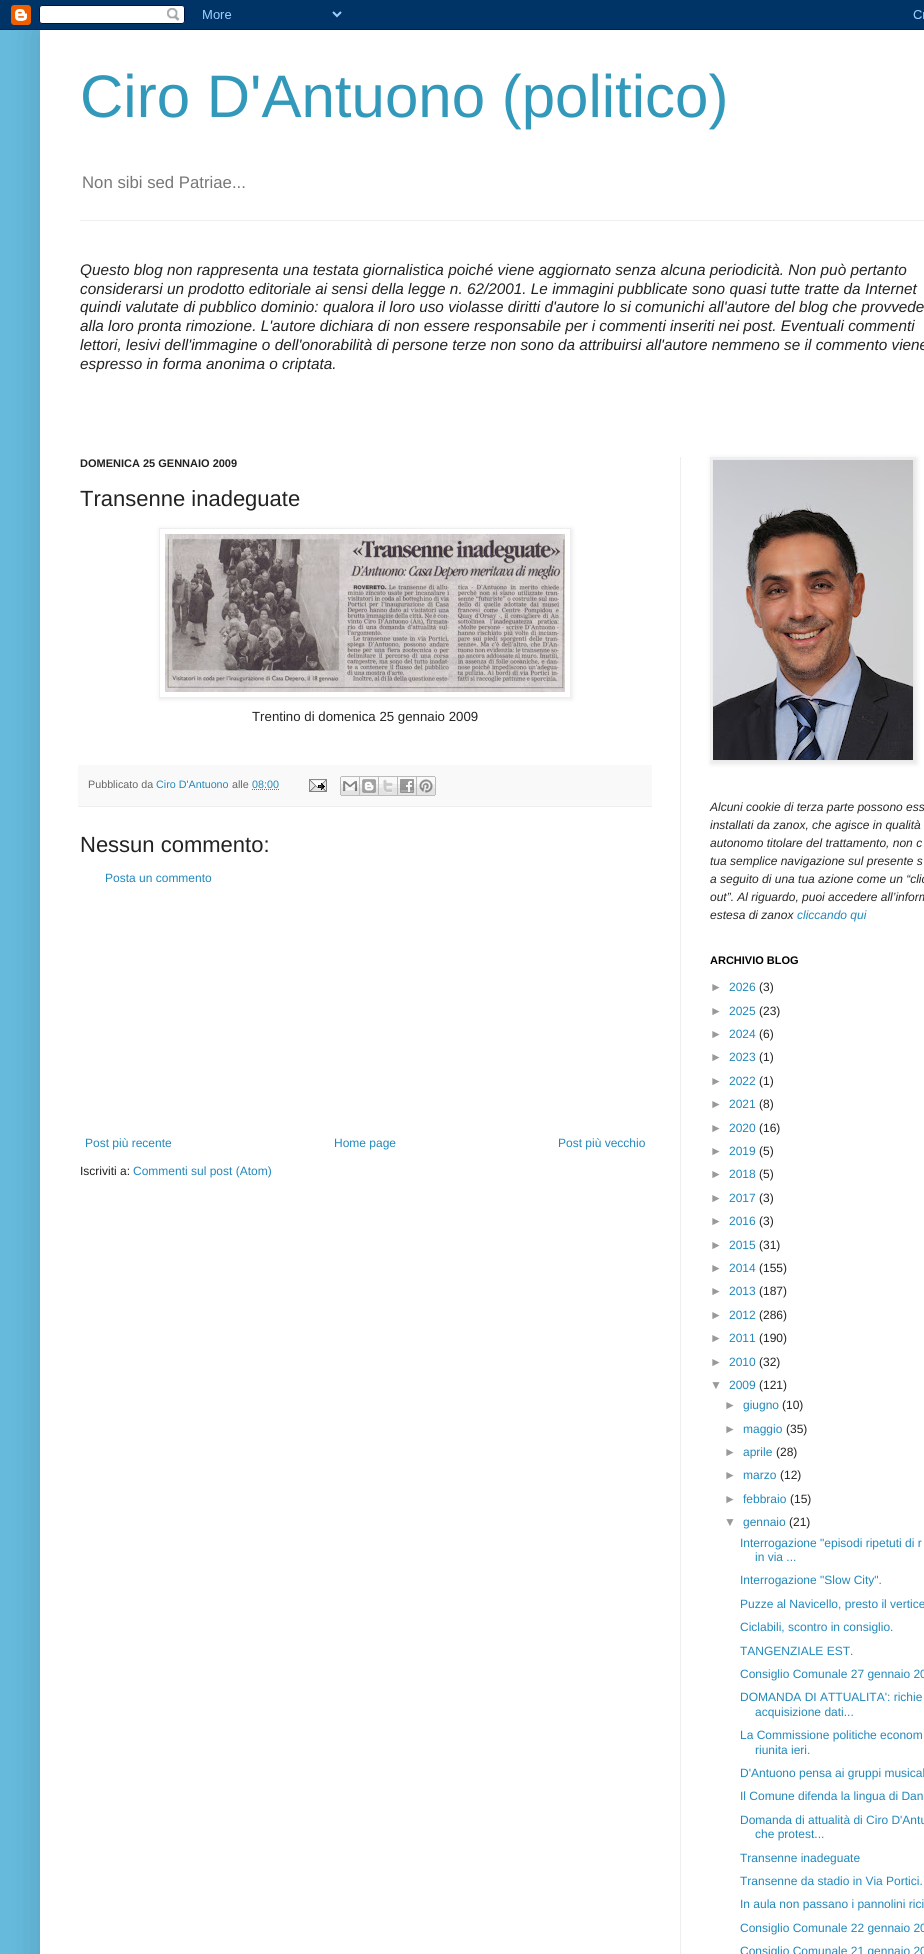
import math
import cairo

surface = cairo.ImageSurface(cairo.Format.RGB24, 924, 1954)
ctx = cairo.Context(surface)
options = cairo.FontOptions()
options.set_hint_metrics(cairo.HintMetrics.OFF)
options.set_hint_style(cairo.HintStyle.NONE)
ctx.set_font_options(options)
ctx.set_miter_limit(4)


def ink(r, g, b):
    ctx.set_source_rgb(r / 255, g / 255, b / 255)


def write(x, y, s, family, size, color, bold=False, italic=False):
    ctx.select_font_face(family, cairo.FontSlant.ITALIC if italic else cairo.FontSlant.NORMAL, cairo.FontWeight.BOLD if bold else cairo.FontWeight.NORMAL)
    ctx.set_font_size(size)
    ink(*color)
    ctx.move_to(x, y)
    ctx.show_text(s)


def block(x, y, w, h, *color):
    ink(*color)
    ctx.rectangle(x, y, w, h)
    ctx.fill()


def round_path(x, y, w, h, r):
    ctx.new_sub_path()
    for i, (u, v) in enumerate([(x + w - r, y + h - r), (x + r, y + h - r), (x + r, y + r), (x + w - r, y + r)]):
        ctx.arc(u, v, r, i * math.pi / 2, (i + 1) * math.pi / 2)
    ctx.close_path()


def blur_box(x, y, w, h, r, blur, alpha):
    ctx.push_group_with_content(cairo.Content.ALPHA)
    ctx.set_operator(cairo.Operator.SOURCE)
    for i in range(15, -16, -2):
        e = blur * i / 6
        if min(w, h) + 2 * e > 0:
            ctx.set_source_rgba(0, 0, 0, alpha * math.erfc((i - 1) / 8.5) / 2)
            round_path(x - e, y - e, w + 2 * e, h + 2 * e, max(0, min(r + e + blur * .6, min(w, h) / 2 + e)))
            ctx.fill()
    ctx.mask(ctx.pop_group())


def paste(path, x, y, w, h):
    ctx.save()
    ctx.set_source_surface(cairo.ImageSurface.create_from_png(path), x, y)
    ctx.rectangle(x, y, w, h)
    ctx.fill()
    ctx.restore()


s1 = dict(family="Liberation Sans", size=60, color=(51, 153, 187))
s2 = dict(family="Liberation Sans", size=16.75, color=(119, 119, 119))
s3 = dict(family="Liberation Sans", size=15.33, color=(34, 34, 34), italic=True)
s4 = dict(family="Liberation Sans", size=11, color=(34, 34, 34), bold=True)
s5 = dict(family="Liberation Sans", size=22, color=(34, 34, 34))
s6 = dict(family="Liberation Sans", size=13.25, color=(34, 34, 34))
s7 = dict(family="Liberation Sans", size=10.75, color=(102, 102, 102))
s8 = dict(family="Liberation Sans", size=10.75, color=(34, 136, 187))
s9 = dict(family="Liberation Sans", size=12, color=(34, 136, 187))
s10 = dict(family="Liberation Sans", size=12, color=(34, 34, 34))
s11 = dict(family="Liberation Sans", size=12, color=(40, 40, 40), italic=True)
s12 = dict(family="Liberation Sans", size=12, color=(34, 136, 187), italic=True)
s13 = dict(family="Liberation Sans", size=11, color=(0, 0, 0), bold=True)
s14 = dict(family="Liberation Sans", size=12, color=(153, 153, 153))

ink(102, 187, 221)
ctx.paint()
ink(0, 0, 0)
blur_box(40, 30, 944, 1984, 0, 20, 0.15)
paste("pic1.png", 0, 0, 924, 30)
block(40, 30, 884, 1924, 255, 255, 255)
write(80, 117, "Ciro D'Antuono (politico)", **s1)
write(82, 188, "Non sibi sed Patriae...", **s2)
block(80, 220, 844, 1, 238, 238, 238)
write(80, 275, "Questo blog non rappresenta una testata giornalistica poiché viene aggiornato senza alcuna periodicità. Non può pertanto", **s3)
write(80, 294, "considerarsi un prodotto editoriale ai sensi della legge n. 62/2001. Le immagini pubblicate sono quasi tutte tratte da Internet", **s3)
write(80, 312, "quindi valutate di pubblico dominio: qualora il loro uso violasse diritti d'autore lo si comunichi all'autore del blog che provvede", **s3)
write(80, 331, "alla loro pronta rimozione. L'autore dichiara di non essere responsabile per i commenti inseriti nei post. Eventuali commenti", **s3)
write(80, 350, "lettori, lesivi dell'immagine o dell'onorabilità di persone terze non sono da attribuirsi all'autore nemmeno se il commento viene", **s3)
write(80, 369, "espresso in forma anonima o criptata.", **s3)
block(680, 457, 1, 1497, 238, 238, 238)
write(80, 467, "DOMENICA 25 GENNAIO 2009", **s4)
write(80, 506, "Transenne inadeguate", **s5)
ctx.save()
ctx.set_fill_rule(cairo.FillRule.EVEN_ODD)
ctx.new_path()
ctx.move_to(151, 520)
ctx.line_to(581, 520)
ctx.line_to(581, 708)
ctx.line_to(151, 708)
ctx.close_path()
ctx.move_to(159, 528)
ctx.line_to(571, 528)
ctx.line_to(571, 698)
ctx.line_to(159, 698)
ctx.close_path()
ctx.clip()
ink(0, 0, 0)
blur_box(160, 529, 412, 170, 0, 2.5, 0.1)
ctx.restore()
ctx.rectangle(159.5, 528.5, 411, 169)
ink(238, 238, 238)
ctx.set_line_width(1)
ctx.stroke()
paste("pic2.png", 165, 534, 400, 158)
write(252, 721, "Trentino di domenica 25 gennaio 2009", **s6)
block(78, 765, 574, 41, 249, 249, 249)
block(78, 806, 574, 1, 238, 238, 238)
write(88, 788, "Pubblicato da", **s7)
write(156, 788, "Ciro D'Antuono", **s8)
write(232, 788, "alle", **s7)
write(252, 788, "08:00", **s8)
ctx.new_path()
ctx.move_to(252, 789.5)
ctx.line_to(279, 789.5)
ctx.set_dash([1, 1])
ctx.stroke()
paste("pic3.png", 309, 779, 18, 13)
paste("pic4.png", 340, 776, 20, 20)
paste("pic5.png", 360, 776, 19, 20)
paste("pic6.png", 379, 776, 19, 20)
paste("pic7.png", 398, 776, 19, 20)
paste("pic8.png", 417, 776, 19, 20)
write(80, 852, "Nessun commento:", **s5)
write(105, 882, "Posta un commento", **s9)
write(85, 1147, "Post più recente", **s9)
write(334, 1147, "Home page", **s9)
write(558, 1147, "Post più vecchio", **s9)
write(80, 1175, "Iscriviti a:", **s10)
write(133, 1175, "Commenti sul post (Atom)", **s9)
ink(0, 0, 0)
blur_box(711, 458, 206, 306, 0, 2.5, 0.1)
ctx.rectangle(710.5, 457.5, 205, 305)
ink(238, 238, 238)
ctx.set_dash([])
ctx.stroke()
paste("pic9.png", 713, 460, 200, 300)
write(710, 811, "Alcuni cookie di terza parte possono ess", **s11)
write(710, 829, "installati da zanox, che agisce in qualità", **s11)
write(710, 847, "autonomo titolare del trattamento, non c", **s11)
write(710, 865, "tua semplice navigazione sul presente s", **s11)
write(710, 883, "a seguito di una tua azione come un “clic", **s11)
write(710, 901, "out”. Al riguardo, puoi accedere all’inform", **s11)
write(710, 919, "estesa di zanox", **s11)
write(797, 919, "cliccando qui", **s12)
write(710, 964, "ARCHIVIO BLOG", **s13)
write(710, 991, "►", **s14)
write(729, 991, "2026", **s9)
write(759, 991, "(3)", **s10)
write(710, 1015, "►", **s14)
write(729, 1015, "2025", **s9)
write(759, 1015, "(23)", **s10)
write(710, 1038, "►", **s14)
write(729, 1038, "2024", **s9)
write(759, 1038, "(6)", **s10)
write(710, 1061, "►", **s14)
write(729, 1061, "2023", **s9)
write(759, 1061, "(1)", **s10)
write(710, 1085, "►", **s14)
write(729, 1085, "2022", **s9)
write(759, 1085, "(1)", **s10)
write(710, 1108, "►", **s14)
write(729, 1108, "2021", **s9)
write(759, 1108, "(8)", **s10)
write(710, 1132, "►", **s14)
write(729, 1132, "2020", **s9)
write(759, 1132, "(16)", **s10)
write(710, 1155, "►", **s14)
write(729, 1155, "2019", **s9)
write(759, 1155, "(5)", **s10)
write(710, 1178, "►", **s14)
write(729, 1178, "2018", **s9)
write(759, 1178, "(5)", **s10)
write(710, 1202, "►", **s14)
write(729, 1202, "2017", **s9)
write(759, 1202, "(3)", **s10)
write(710, 1225, "►", **s14)
write(729, 1225, "2016", **s9)
write(759, 1225, "(3)", **s10)
write(710, 1249, "►", **s14)
write(729, 1249, "2015", **s9)
write(759, 1249, "(31)", **s10)
write(710, 1272, "►", **s14)
write(729, 1272, "2014", **s9)
write(759, 1272, "(155)", **s10)
write(710, 1295, "►", **s14)
write(729, 1295, "2013", **s9)
write(759, 1295, "(187)", **s10)
write(710, 1319, "►", **s14)
write(729, 1319, "2012", **s9)
write(759, 1319, "(286)", **s10)
write(710, 1342, "►", **s14)
write(729, 1342, "2011", **s9)
write(759, 1342, "(190)", **s10)
write(710, 1366, "►", **s14)
write(729, 1366, "2010", **s9)
write(759, 1366, "(32)", **s10)
write(710, 1389, "▼", **s14)
write(729, 1389, "2009", **s9)
write(759, 1389, "(121)", **s10)
write(724, 1409, "►", **s14)
write(743, 1409, "giugno", **s9)
write(782, 1409, "(10)", **s10)
write(724, 1433, "►", **s14)
write(743, 1433, "maggio", **s9)
write(786, 1433, "(35)", **s10)
write(724, 1456, "►", **s14)
write(743, 1456, "aprile", **s9)
write(776, 1456, "(28)", **s10)
write(724, 1479, "►", **s14)
write(743, 1479, "marzo", **s9)
write(780, 1479, "(12)", **s10)
write(724, 1503, "►", **s14)
write(743, 1503, "febbraio", **s9)
write(790, 1503, "(15)", **s10)
write(724, 1526, "▼", **s14)
write(743, 1526, "gennaio", **s9)
write(789, 1526, "(21)", **s10)
write(740, 1547, "Interrogazione \"episodi ripetuti di r", **s9)
write(755, 1561, "in via ...", **s9)
write(740, 1584, "Interrogazione \"Slow City\".", **s9)
write(740, 1608, "Puzze al Navicello, presto il vertice", **s9)
write(740, 1631, "Ciclabili, scontro in consiglio.", **s9)
write(740, 1655, "TANGENZIALE EST.", **s9)
write(740, 1678, "Consiglio Comunale 27 gennaio 20", **s9)
write(740, 1701, "DOMANDA DI ATTUALITA': richie", **s9)
write(755, 1716, "acquisizione dati...", **s9)
write(740, 1739, "La Commissione politiche econom", **s9)
write(755, 1754, "riunita ieri.", **s9)
write(740, 1777, "D'Antuono pensa ai gruppi musical", **s9)
write(740, 1800, "Il Comune difenda la lingua di Dan", **s9)
write(740, 1824, "Domanda di attualità di Ciro D'Antu", **s9)
write(755, 1838, "che protest...", **s9)
write(740, 1862, "Transenne inadeguate", **s9)
write(740, 1885, "Transenne da stadio in Via Portici.", **s9)
write(740, 1908, "In aula non passano i pannolini rici", **s9)
write(740, 1932, "Consiglio Comunale 22 gennaio 20", **s9)
write(740, 1955, "Consiglio Comunale 21 gennaio 20", **s9)
surface.write_to_png("screenshot.png")
